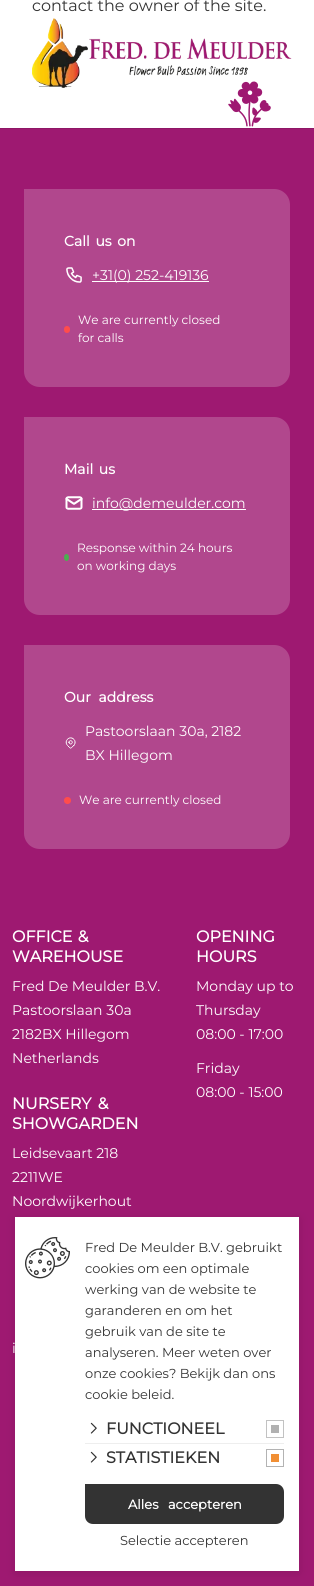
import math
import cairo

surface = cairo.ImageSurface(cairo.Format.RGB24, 314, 1586)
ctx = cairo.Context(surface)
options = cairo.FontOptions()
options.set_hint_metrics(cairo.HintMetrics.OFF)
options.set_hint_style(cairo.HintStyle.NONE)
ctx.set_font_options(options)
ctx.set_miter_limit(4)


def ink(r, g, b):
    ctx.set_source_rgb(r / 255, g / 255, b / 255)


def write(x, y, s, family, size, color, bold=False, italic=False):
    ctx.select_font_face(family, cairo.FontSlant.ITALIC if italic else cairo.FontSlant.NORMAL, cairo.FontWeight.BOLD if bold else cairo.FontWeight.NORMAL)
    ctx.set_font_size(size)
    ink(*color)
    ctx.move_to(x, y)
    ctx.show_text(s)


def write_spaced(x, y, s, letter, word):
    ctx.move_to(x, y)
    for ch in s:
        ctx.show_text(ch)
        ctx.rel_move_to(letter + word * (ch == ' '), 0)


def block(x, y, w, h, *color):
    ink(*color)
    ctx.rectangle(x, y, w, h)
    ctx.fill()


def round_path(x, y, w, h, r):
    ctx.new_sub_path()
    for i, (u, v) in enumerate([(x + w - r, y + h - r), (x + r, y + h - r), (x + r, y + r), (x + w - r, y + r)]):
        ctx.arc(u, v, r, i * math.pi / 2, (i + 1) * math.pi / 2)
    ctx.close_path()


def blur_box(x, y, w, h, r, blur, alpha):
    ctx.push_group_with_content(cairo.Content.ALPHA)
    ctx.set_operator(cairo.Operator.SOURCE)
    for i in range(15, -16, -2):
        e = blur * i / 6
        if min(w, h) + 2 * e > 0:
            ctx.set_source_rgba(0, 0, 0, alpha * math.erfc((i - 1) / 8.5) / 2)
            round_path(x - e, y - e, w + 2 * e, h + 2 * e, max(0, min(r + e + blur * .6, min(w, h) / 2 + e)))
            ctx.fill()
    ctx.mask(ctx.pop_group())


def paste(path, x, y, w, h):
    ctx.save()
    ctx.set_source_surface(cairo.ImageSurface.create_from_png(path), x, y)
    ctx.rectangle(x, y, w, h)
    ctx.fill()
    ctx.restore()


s1 = dict(family="Montserrat", size=16, color=(51, 51, 51))
s2 = dict(family="Montserrat", size=14, color=(255, 255, 255))
s3 = dict(family="Montserrat", size=12, color=(255, 255, 255))
s4 = dict(family="Montserrat", size=16, color=(255, 255, 255), bold=True)
s5 = dict(family="Montserrat", size=13, color=(51, 51, 51))
s6 = dict(family="Montserrat", size=16, color=(51, 51, 51), bold=True)

ink(255, 255, 255)
ctx.paint()
write(32, 11, "contact the owner of the site.", **s1)
paste("pic1.png", 32, 18, 260, 70)
paste("pic2.png", 228, 81, 43, 46)
block(0, 129, 314, 1457, 158, 25, 113)
block(0, 128, 314, 1, 142, 23, 102)
ink(177, 71, 141)
ctx.new_path()
ctx.move_to(24, 189)
ctx.line_to(274, 189)
ctx.curve_to(283, 189, 290, 196, 290, 205)
ctx.line_to(290, 371)
ctx.curve_to(290, 380, 283, 387, 274, 387)
ctx.line_to(40, 387)
ctx.curve_to(31, 387, 24, 380, 24, 371)
ctx.close_path()
ctx.fill()
ctx.select_font_face("Montserrat", cairo.FontSlant.NORMAL, cairo.FontWeight.BOLD)
ctx.set_font_size(14)
ink(255, 255, 255)
write_spaced(64, 246, "Call us on", 0, 2)
paste("pic3.png", 66, 267, 16, 16)
block(92, 281, 117, 1, 255, 255, 255)
write(92, 280, "+31(0) 252-419136", **s2)
write(78, 324, "We are currently closed", **s3)
ink(255, 76, 76)
round_path(64, 326, 6, 7, 3)
ctx.fill()
write(78, 342, "for calls", **s3)
ink(177, 71, 141)
ctx.new_path()
ctx.move_to(24, 417)
ctx.line_to(274, 417)
ctx.curve_to(283, 417, 290, 424, 290, 433)
ctx.line_to(290, 599)
ctx.curve_to(290, 608, 283, 615, 274, 615)
ctx.line_to(40, 615)
ctx.curve_to(31, 615, 24, 608, 24, 599)
ctx.close_path()
ctx.fill()
ctx.select_font_face("Montserrat", cairo.FontSlant.NORMAL, cairo.FontWeight.BOLD)
ctx.set_font_size(14)
ink(255, 255, 255)
write_spaced(64, 474, "Mail us", 0, 2)
paste("pic4.png", 65, 496, 18, 14)
block(92, 509, 154, 1, 255, 255, 255)
write(92, 508, "info@demeulder.com", **s2)
write(77, 552, "Response within 24 hours", **s3)
ink(76, 175, 80)
ctx.new_path()
ctx.move_to(66.5, 554)
ctx.curve_to(68, 554, 69, 555.5, 69, 557.5)
ctx.curve_to(69, 559.5, 68, 561, 66.5, 561)
ctx.curve_to(65, 561, 64, 559.5, 64, 557.5)
ctx.curve_to(64, 555.5, 65, 554, 66.5, 554)
ctx.close_path()
ctx.fill()
write(77, 570, "on working days", **s3)
ink(177, 71, 141)
ctx.new_path()
ctx.move_to(24, 645)
ctx.line_to(274, 645)
ctx.curve_to(283, 645, 290, 652, 290, 661)
ctx.line_to(290, 833)
ctx.curve_to(290, 842, 283, 849, 274, 849)
ctx.line_to(40, 849)
ctx.curve_to(31, 849, 24, 842, 24, 833)
ctx.close_path()
ctx.fill()
ctx.select_font_face("Montserrat", cairo.FontSlant.NORMAL, cairo.FontWeight.BOLD)
ctx.set_font_size(14)
ink(255, 255, 255)
write_spaced(64, 702, "Our address", 0, 4)
paste("pic5.png", 65, 737, 11, 12)
write(85, 736, "Pastoorslaan 30a, 2182", **s2)
write(85, 760, "BX Hillegom", **s2)
ink(255, 76, 76)
ctx.new_path()
ctx.arc(67.5, 800.5, 3.5, 0, 2 * math.pi)
ctx.fill()
write(79, 804, "We are currently closed", **s3)
ctx.select_font_face("Montserrat", cairo.FontSlant.NORMAL, cairo.FontWeight.BOLD)
ctx.set_font_size(16)
write_spaced(12, 942, "OFFICE &", 0, 1)
write(12, 962, "WAREHOUSE", **s4)
write(12, 991, "Fred De Meulder B.V.", **s2)
write(12, 1015, "Pastoorslaan 30a", **s2)
write(12, 1039, "2182BX Hillegom", **s2)
write(12, 1063, "Netherlands", **s2)
ctx.select_font_face("Montserrat", cairo.FontSlant.NORMAL, cairo.FontWeight.BOLD)
ctx.set_font_size(16)
write_spaced(12, 1109, "NURSERY &", 0, 2)
write(12, 1129, "SHOWGARDEN", **s4)
write(12, 1158, "Leidsevaart 218", **s2)
write(12, 1182, "2211WE", **s2)
write(12, 1206, "Noordwijkerhout", **s2)
write(12, 1353, "i", **s2)
write(196, 942, "OPENING", **s4)
write(196, 962, "HOURS", **s4)
write(196, 991, "Monday up to", **s2)
write(196, 1015, "Thursday", **s2)
write(196, 1039, "08:00 - 17:00", **s2)
write(196, 1073, "Friday", **s2)
write(196, 1097, "08:00 - 15:00", **s2)
ink(0, 0, 0)
blur_box(15, 1219, 284, 354, 0, 5, 0.1)
block(15, 1217, 284, 354, 255, 255, 255)
paste("pic6.png", 25, 1237, 45, 42)
write(85, 1252, "Fred De Meulder B.V. gebruikt", **s5)
write(85, 1273, "cookies om een optimale", **s5)
write(85, 1294, "werking van de website te", **s5)
write(85, 1315, "garanderen en om het", **s5)
write(85, 1336, "gebruik van de site te", **s5)
write(85, 1357, "analyseren. Meer weten over", **s5)
write(85, 1378, "onze cookies? Bekijk dan ons", **s5)
write(85, 1399, "cookie beleid.", **s5)
paste("pic7.png", 90, 1422, 7, 12)
write(106, 1434, "FUNCTIONEEL", **s6)
ctx.rectangle(266.5, 1420.5, 17, 17)
ink(194, 194, 194)
ctx.set_line_width(1)
ctx.stroke()
block(271, 1425, 8, 8, 177, 177, 177)
block(85, 1443, 199, 1, 238, 238, 238)
paste("pic7.png", 90, 1451, 7, 12)
write(106, 1463, "STATISTIEKEN", **s6)
ctx.rectangle(266.5, 1449.5, 17, 17)
ink(179, 179, 179)
ctx.stroke()
block(271, 1454, 8, 8, 241, 143, 52)
ink(51, 51, 51)
ctx.new_path()
ctx.move_to(85, 1484)
ctx.line_to(276, 1484)
ctx.curve_to(280.5, 1484, 284, 1487.5, 284, 1492)
ctx.line_to(284, 1516)
ctx.curve_to(284, 1520.5, 280.5, 1524, 276, 1524)
ctx.line_to(93, 1524)
ctx.curve_to(88.5, 1524, 85, 1520.5, 85, 1516)
ctx.close_path()
ctx.fill()
ctx.set_font_size(13)
ink(255, 255, 255)
write_spaced(128, 1509, "Alles accepteren", 0, 6)
write(120, 1545, "Selectie accepteren", **s5)
surface.write_to_png("screenshot.png")
